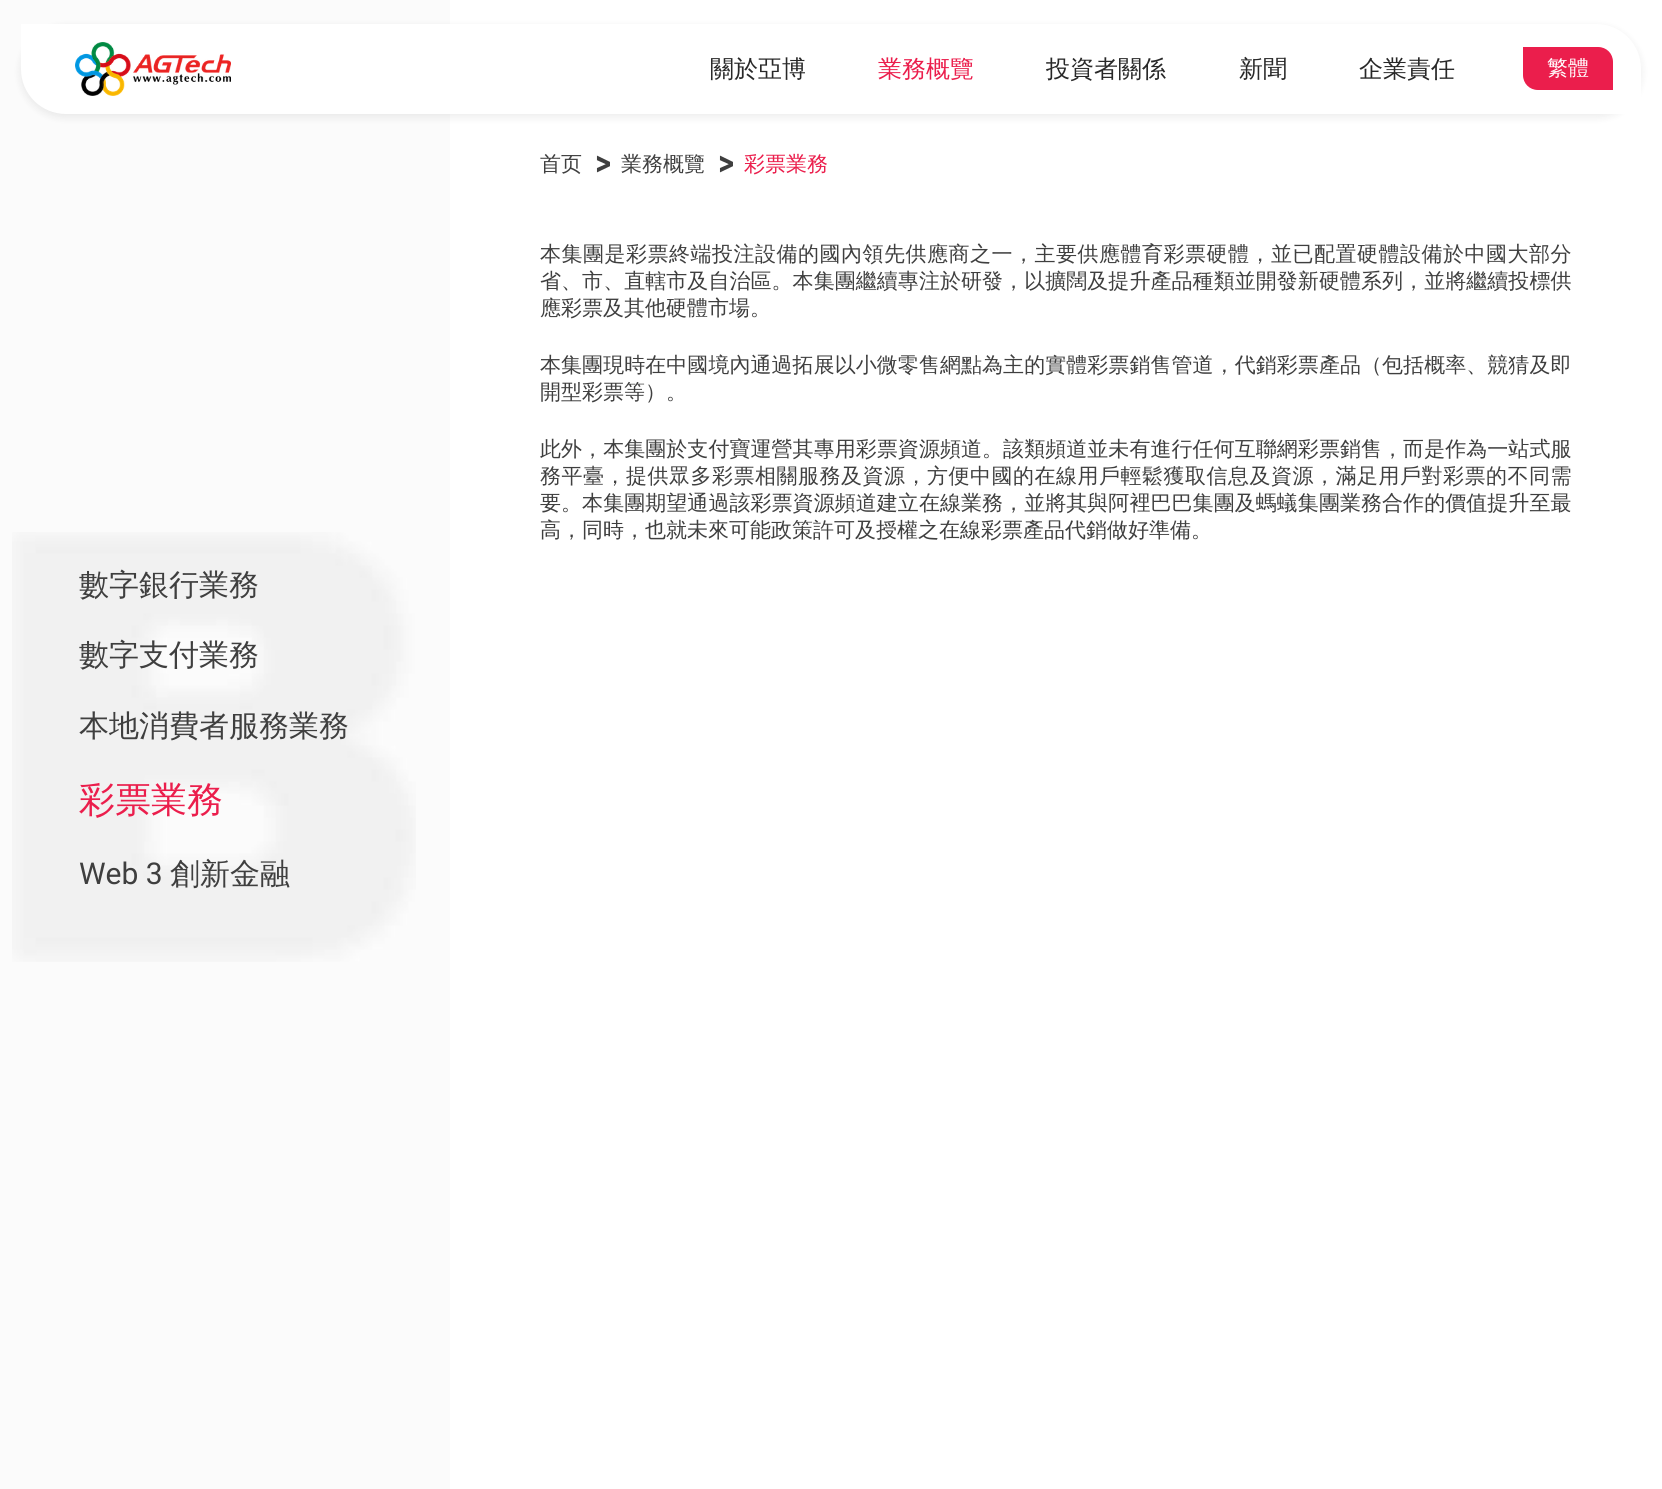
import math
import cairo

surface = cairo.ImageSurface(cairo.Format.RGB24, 1662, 1489)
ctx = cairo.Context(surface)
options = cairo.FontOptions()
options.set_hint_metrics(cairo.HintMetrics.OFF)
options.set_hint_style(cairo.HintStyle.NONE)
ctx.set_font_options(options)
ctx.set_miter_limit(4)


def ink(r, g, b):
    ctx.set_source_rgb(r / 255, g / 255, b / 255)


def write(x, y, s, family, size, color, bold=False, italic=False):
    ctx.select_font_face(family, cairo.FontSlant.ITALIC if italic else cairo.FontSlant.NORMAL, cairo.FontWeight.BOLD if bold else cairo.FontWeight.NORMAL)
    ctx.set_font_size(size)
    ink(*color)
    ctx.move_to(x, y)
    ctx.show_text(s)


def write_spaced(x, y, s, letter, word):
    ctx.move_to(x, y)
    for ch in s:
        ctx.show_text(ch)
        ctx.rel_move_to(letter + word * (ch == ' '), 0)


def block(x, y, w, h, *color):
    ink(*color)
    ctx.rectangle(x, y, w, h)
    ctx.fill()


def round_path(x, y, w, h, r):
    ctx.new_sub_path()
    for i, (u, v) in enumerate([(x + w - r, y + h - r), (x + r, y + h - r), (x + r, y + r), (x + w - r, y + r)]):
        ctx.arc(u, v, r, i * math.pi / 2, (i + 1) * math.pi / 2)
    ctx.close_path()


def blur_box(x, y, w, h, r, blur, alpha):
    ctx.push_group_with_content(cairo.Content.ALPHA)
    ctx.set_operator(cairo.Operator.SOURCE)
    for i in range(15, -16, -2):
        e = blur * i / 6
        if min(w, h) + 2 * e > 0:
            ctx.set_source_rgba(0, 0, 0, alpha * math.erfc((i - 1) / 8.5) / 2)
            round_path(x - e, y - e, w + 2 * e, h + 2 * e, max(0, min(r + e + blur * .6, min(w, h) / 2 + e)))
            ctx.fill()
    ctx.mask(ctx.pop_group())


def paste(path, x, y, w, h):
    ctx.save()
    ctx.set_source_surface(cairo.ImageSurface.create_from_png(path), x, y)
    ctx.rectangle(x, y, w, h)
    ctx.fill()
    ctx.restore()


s1 = dict(family="WenQuanYi Zen Hei Medium", size=24, color=(40, 40, 40))
s2 = dict(family="WenQuanYi Zen Hei Medium", size=24, color=(235, 30, 76))
s3 = dict(family="WenQuanYi Zen Hei Medium", size=21, color=(255, 255, 255))
s4 = dict(family="WenQuanYi Zen Hei Medium", size=21, color=(63, 63, 63))
s5 = dict(family="WenQuanYi Zen Hei Medium", size=21, color=(235, 30, 76))
s6 = dict(family="WenQuanYi Zen Hei Medium", size=30, color=(63, 63, 63))
s7 = dict(family="WenQuanYi Zen Hei Medium", size=36, color=(235, 30, 76))
s8 = dict(family="Roboto", size=30, color=(63, 63, 63))

ink(255, 255, 255)
ctx.paint()
block(0, 0, 450, 1489, 251, 251, 251)
ink(0, 0, 0)
blur_box(21, 27, 1620, 90, 45, 4.5, 0.08)
ink(255, 255, 255)
ctx.new_path()
ctx.move_to(21, 24)
ctx.line_to(1596, 24)
ctx.curve_to(1621, 24, 1641, 44, 1641, 69)
ctx.line_to(1641, 114)
ctx.line_to(66, 114)
ctx.curve_to(41, 114, 21, 94, 21, 69)
ctx.close_path()
ctx.fill()
paste("pic1.png", 75, 42, 156, 54)
write(710, 77, "關於亞博", **s1)
write(878, 77, "業務概覽", **s2)
write(1046, 77, "投資者關係", **s1)
write(1239, 77, "新聞", **s1)
write(1359, 77, "企業責任", **s1)
ink(235, 30, 76)
ctx.new_path()
ctx.move_to(1523, 47)
ctx.line_to(1598, 47)
ctx.curve_to(1606.5, 47, 1613, 53.5, 1613, 62)
ctx.line_to(1613, 90)
ctx.line_to(1538, 90)
ctx.curve_to(1529.5, 90, 1523, 83.5, 1523, 75)
ctx.close_path()
ctx.fill()
write(1547, 75, "繁體", **s3)
write(540, 171, "首页", **s4)
paste("pic2.png", 596, 155, 14, 18)
write(621, 171, "業務概覽", **s4)
paste("pic2.png", 719, 155, 14, 18)
write(744, 171, "彩票業務", **s5)
ink(63, 63, 63)
write_spaced(540, 261, "本集團是彩票終端投注設備的國內領先供應商之一，主要供應體育彩票硬體，並已配置硬體設備於中國大部分", 0.5, 0)
write_spaced(540, 288, "省、市、直轄市及自治區。本集團繼續專注於研發，以擴闊及提升產品種類並開發新硬體系列，並將繼續投標供", 0.05, 0)
write(540, 315, "應彩票及其他硬體市場。", **s4)
write_spaced(540, 372, "本集團現時在中國境內通過拓展以小微零售網點為主的實體彩票銷售管道，代銷彩票產品（包括概率、競猜及即", 0.05, 0)
write(540, 399, "開型彩票等）。", **s4)
write_spaced(540, 456, "此外，本集團於支付寶運營其專用彩票資源頻道。該類頻道並未有進行任何互聯網彩票銷售，而是作為一站式服", 0.05, 0)
write_spaced(540, 483, "務平臺，提供眾多彩票相關服務及資源，方便中國的在線用戶輕鬆獲取信息及資源，滿足用戶對彩票的不同需", 0.5, 0)
write_spaced(540, 510, "要。本集團期望通過該彩票資源頻道建立在線業務，並將其與阿裡巴巴集團及螞蟻集團業務合作的價值提升至最", 0.05, 0)
write(540, 537, "高，同時，也就未來可能政策許可及授權之在線彩票產品代銷做好準備。", **s4)
paste("pic3.png", 12, 532, 404, 430)
write(79, 595, "數字銀行業務", **s6)
write(79, 665, "數字支付業務", **s6)
write(79, 736, "本地消費者服務業務", **s6)
write(79, 812, "彩票業務", **s7)
write(79, 884, "Web 3", **s8)
write(170, 884, "創新金融", **s6)
surface.write_to_png("screenshot.png")
